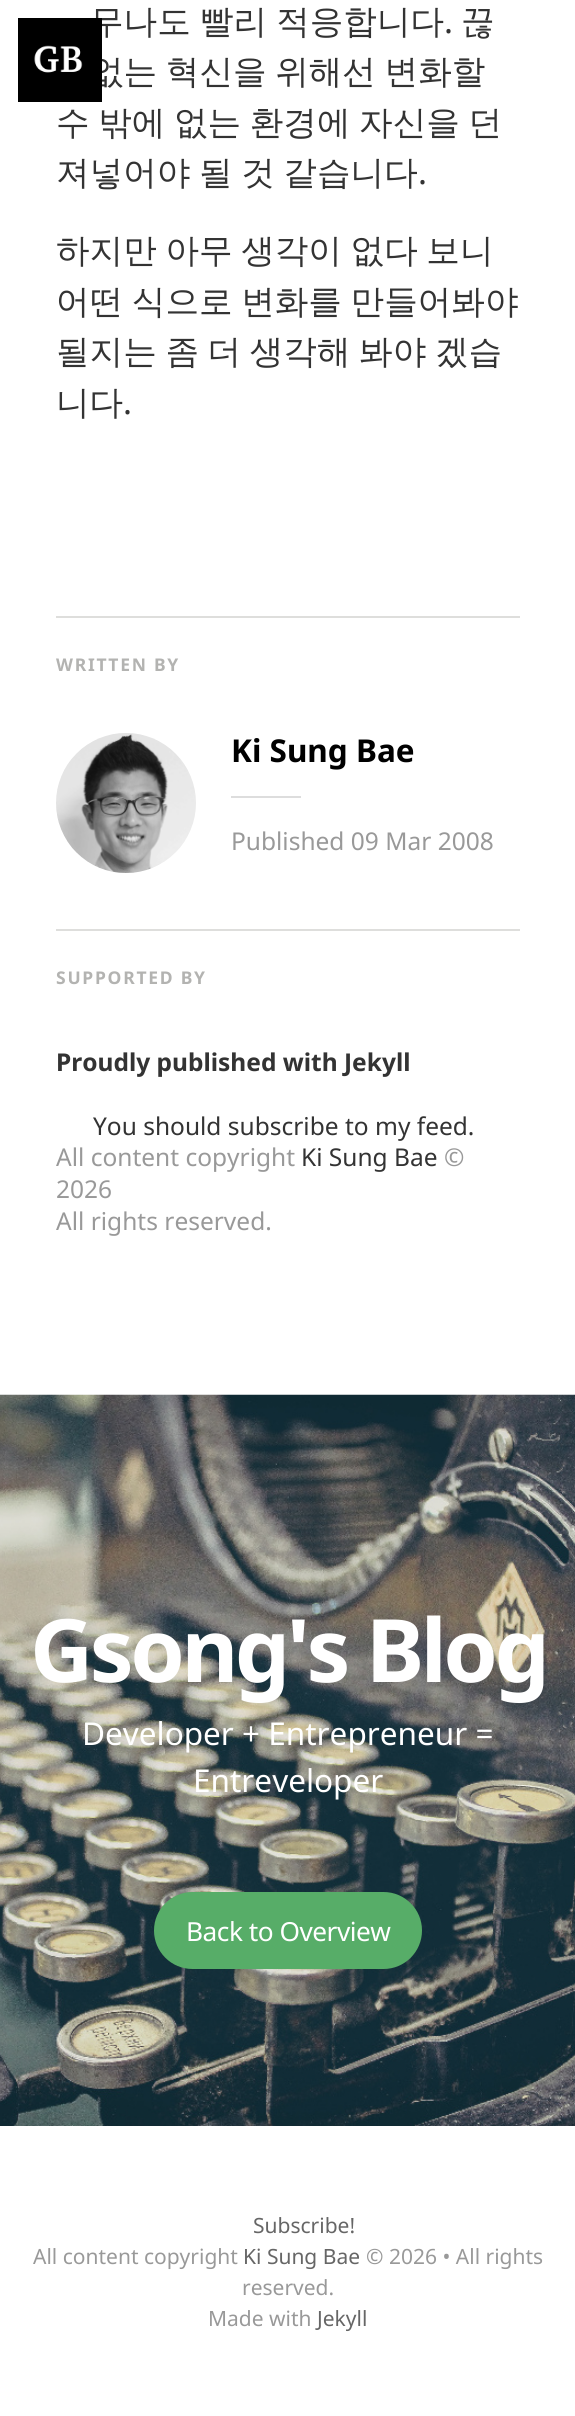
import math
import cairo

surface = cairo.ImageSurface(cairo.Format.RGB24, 575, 2416)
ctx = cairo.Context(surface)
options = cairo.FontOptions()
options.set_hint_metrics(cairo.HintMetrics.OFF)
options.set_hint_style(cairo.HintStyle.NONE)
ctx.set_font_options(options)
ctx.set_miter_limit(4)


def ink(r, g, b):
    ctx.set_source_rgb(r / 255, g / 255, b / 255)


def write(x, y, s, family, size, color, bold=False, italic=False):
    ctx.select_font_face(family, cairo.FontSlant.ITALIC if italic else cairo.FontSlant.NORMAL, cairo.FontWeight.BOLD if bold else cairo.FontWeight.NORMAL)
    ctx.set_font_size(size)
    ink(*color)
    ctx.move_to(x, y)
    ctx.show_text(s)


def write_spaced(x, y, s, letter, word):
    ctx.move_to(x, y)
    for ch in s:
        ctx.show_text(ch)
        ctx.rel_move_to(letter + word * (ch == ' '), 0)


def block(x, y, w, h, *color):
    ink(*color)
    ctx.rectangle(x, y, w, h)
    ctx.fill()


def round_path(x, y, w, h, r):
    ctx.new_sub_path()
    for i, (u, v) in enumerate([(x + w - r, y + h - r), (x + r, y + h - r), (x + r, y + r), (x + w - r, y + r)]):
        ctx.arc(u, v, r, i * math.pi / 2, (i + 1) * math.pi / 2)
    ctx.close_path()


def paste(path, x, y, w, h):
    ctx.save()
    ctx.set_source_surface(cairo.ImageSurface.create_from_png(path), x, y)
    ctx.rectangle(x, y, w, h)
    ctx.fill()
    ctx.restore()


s1 = dict(family="Noto Sans", size=33.6, color=(51, 51, 51))
s2 = dict(family="WenQuanYi Zen Hei Medium", size=33.6, color=(51, 51, 51))
s3 = dict(family="Noto Sans", size=31.5, color=(0, 0, 0), bold=True)
s4 = dict(family="Noto Sans", size=24.5, color=(153, 153, 153))
s5 = dict(family="Noto Sans", size=24.5, color=(51, 51, 51), bold=True)
s6 = dict(family="Noto Sans", size=24.5, color=(51, 51, 51))
s7 = dict(family="Noto Sans", size=31.5, color=(255, 255, 255))
s8 = dict(family="Noto Sans", size=21, color=(102, 102, 102))
s9 = dict(family="Noto Sans", size=21, color=(153, 153, 153))

ink(255, 255, 255)
ctx.paint()
ctx.select_font_face("WenQuanYi Zen Hei Medium")
ctx.set_font_size(33.6)
ink(51, 51, 51)
write_spaced(90, 33, "무나도 빨리 적응합니다", 0, -1)
write(444, 33, ".", **s1)
write(461, 33, "끊", **s2)
write_spaced(90, 83, "없는 혁신을 위해선 변화할", 0, -1.5)
write_spaced(56, 134, "수 밖에 없는 환경에 자신을 던", 0, -1.5)
write_spaced(56, 184, "져넣어야 될 것 같습니다", 0, -1.5)
write(418, 184, ".", **s1)
ctx.select_font_face("WenQuanYi Zen Hei Medium")
write_spaced(56, 262, "하지만 아무 생각이 없다 보니", 0, -1.5)
write_spaced(56, 313, "어떤 식으로 변화를 만들어봐야", 0, -1.5)
write_spaced(56, 363, "될지는 좀 더 생각해 봐야 겠습", 0, -1.5)
write(56, 414, "니다", **s2)
write(123, 414, ".", **s1)
block(56, 616, 464, 2, 222, 222, 220)
ctx.select_font_face("Noto Sans", cairo.FontSlant.NORMAL, cairo.FontWeight.BOLD)
ctx.set_font_size(17.5)
ink(179, 179, 177)
write_spaced(56, 671, "WRITTEN BY", 1.75, 0)
paste("pic1.png", 56, 733, 140, 140)
write(231, 762, "Ki Sung Bae", **s3)
block(231, 796, 70, 2, 221, 221, 221)
write(231, 850, "Published 09 Mar 2008", **s4)
block(56, 929, 464, 2, 222, 222, 220)
ctx.select_font_face("Noto Sans", cairo.FontSlant.NORMAL, cairo.FontWeight.BOLD)
ctx.set_font_size(17.5)
ink(179, 179, 177)
write_spaced(56, 984, "SUPPORTED BY", 1.75, 0)
write(56, 1071, "Proudly published with Jekyll", **s5)
write(93, 1135, "You should subscribe to my feed.", **s6)
write(56, 1166, "All content copyright", **s4)
write(301, 1166, "Ki Sung Bae", **s6)
write(444, 1166, "©", **s4)
write(56, 1198, "2026", **s4)
write(56, 1230, "All rights reserved.", **s4)
block(18, 18, 84, 84, 0, 0, 0)
paste("pic2.png", 34, 45, 49, 28)
paste("pic3.png", 0, 1394, 575, 732)
ctx.select_font_face("Noto Sans", cairo.FontSlant.NORMAL, cairo.FontWeight.BOLD)
ctx.set_font_size(87.5)
ink(255, 255, 255)
write_spaced(30, 1682, "Gsong's Blog", -3.5, 0)
write(82, 1745, "Developer + Entrepreneur =", **s7)
write(193, 1792, "Entreveloper", **s7)
ink(87, 173, 104)
round_path(154, 1892, 268, 77, 38.5)
ctx.fill()
ctx.set_font_size(26.25)
ink(255, 255, 255)
write_spaced(186, 1941, "Back to Overview", -0.5, 0)
write(253, 2233, "Subscribe!", **s8)
write(33, 2264, "All content copyright", **s9)
write(243, 2264, "Ki Sung Bae", **s8)
write(366, 2264, "© 2026 • All rights", **s9)
write(242, 2295, "reserved.", **s9)
write(208, 2326, "Made with", **s9)
write(317, 2326, "Jekyll", **s8)
surface.write_to_png("screenshot.png")
